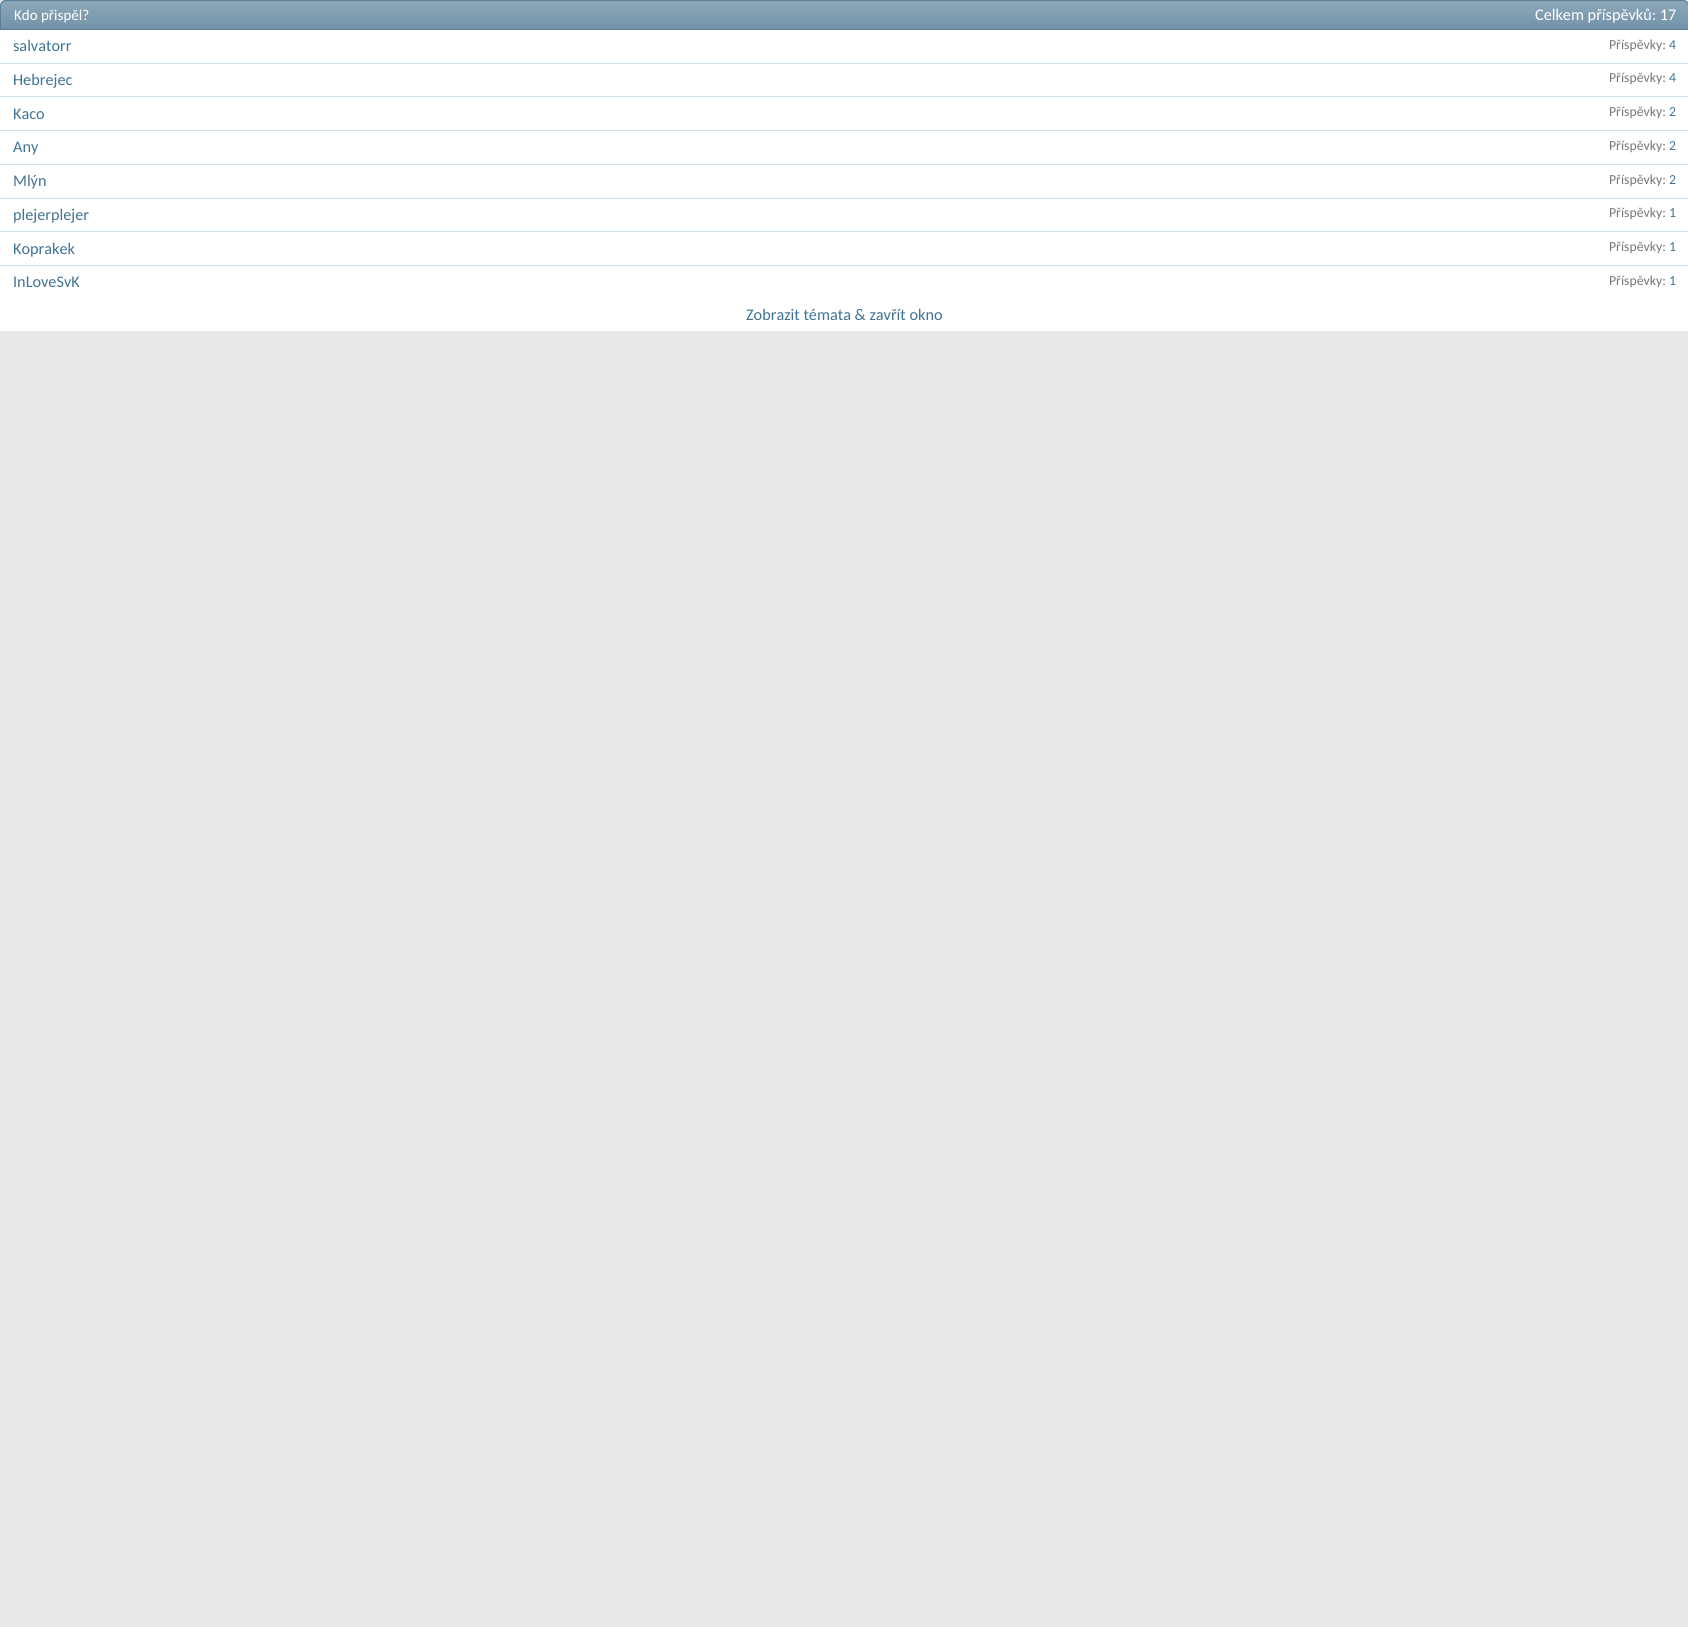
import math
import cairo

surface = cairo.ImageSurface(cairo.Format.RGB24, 1688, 1627)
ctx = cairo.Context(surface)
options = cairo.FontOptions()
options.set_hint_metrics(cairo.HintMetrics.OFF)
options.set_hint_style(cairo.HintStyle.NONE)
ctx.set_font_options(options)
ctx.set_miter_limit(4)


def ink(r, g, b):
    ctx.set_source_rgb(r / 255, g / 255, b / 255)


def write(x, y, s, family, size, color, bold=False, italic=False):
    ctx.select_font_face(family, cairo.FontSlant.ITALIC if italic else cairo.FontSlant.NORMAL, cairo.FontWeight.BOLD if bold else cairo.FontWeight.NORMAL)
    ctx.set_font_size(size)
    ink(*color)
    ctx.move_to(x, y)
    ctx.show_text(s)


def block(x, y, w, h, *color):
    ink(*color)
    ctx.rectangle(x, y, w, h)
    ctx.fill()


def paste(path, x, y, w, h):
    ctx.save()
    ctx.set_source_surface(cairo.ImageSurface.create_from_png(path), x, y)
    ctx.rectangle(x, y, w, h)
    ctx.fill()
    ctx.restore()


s1 = dict(family="Carlito", size=15, color=(255, 255, 255))
s2 = dict(family="Carlito", size=16.25, color=(255, 255, 255))
s3 = dict(family="Carlito", size=16.25, color=(65, 115, 148))
s4 = dict(family="Carlito", size=13.75, color=(119, 119, 119))
s5 = dict(family="Carlito", size=13.75, color=(65, 115, 148))

ink(233, 233, 233)
ctx.paint()
ink(113, 146, 168)
ctx.new_path()
ctx.move_to(6, 0)
ctx.line_to(1683, 0)
ctx.curve_to(1686.5, 0, 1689, 2.5, 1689, 6)
ctx.line_to(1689, 30)
ctx.line_to(0, 30)
ctx.line_to(0, 6)
ctx.curve_to(0, 2.5, 2.5, 0, 6, 0)
ctx.close_path()
ctx.fill()
paste("pic1.png", 0, 1, 1688, 25)
ctx.new_path()
ctx.move_to(6, 0.5)
ctx.line_to(1683, 0.5)
ctx.curve_to(1686, 0.5, 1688.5, 3, 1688.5, 6)
ctx.line_to(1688.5, 29.5)
ctx.line_to(0.5, 29.5)
ctx.line_to(0.5, 6)
ctx.curve_to(0.5, 3, 3, 0.5, 6, 0.5)
ctx.close_path()
ink(90, 127, 151)
ctx.set_line_width(1)
ctx.stroke()
write(14, 20, "Kdo přispěl?", **s1)
write(1535, 20, "Celkem příspěvků: 17", **s2)
block(0, 30, 1688, 301, 255, 255, 255)
block(0, 63, 1688, 1, 206, 223, 235)
write(13, 51, "salvatorr", **s3)
write(1609, 49, "Příspěvky:", **s4)
write(1669, 49, "4", **s5)
block(0, 96, 1688, 1, 206, 223, 235)
write(13, 85, "Hebrejec", **s3)
write(1609, 82, "Příspěvky:", **s4)
write(1669, 82, "4", **s5)
block(0, 130, 1688, 1, 206, 223, 235)
write(13, 119, "Kaco", **s3)
write(1609, 116, "Příspěvky:", **s4)
write(1669, 116, "2", **s5)
block(0, 164, 1688, 1, 206, 223, 235)
write(13, 152, "Any", **s3)
write(1609, 150, "Příspěvky:", **s4)
write(1669, 150, "2", **s5)
block(0, 198, 1688, 1, 206, 223, 235)
write(13, 186, "Mlýn", **s3)
write(1609, 184, "Příspěvky:", **s4)
write(1669, 184, "2", **s5)
block(0, 231, 1688, 1, 206, 223, 235)
write(13, 220, "plejerplejer", **s3)
write(1609, 217, "Příspěvky:", **s4)
write(1669, 217, "1", **s5)
block(0, 265, 1688, 1, 206, 223, 235)
write(13, 254, "Koprakek", **s3)
write(1609, 251, "Příspěvky:", **s4)
write(1669, 251, "1", **s5)
write(13, 287, "InLoveSvK", **s3)
write(1609, 285, "Příspěvky:", **s4)
write(1669, 285, "1", **s5)
write(746, 320, "Zobrazit témata & zavřít okno", **s3)
surface.write_to_png("screenshot.png")
